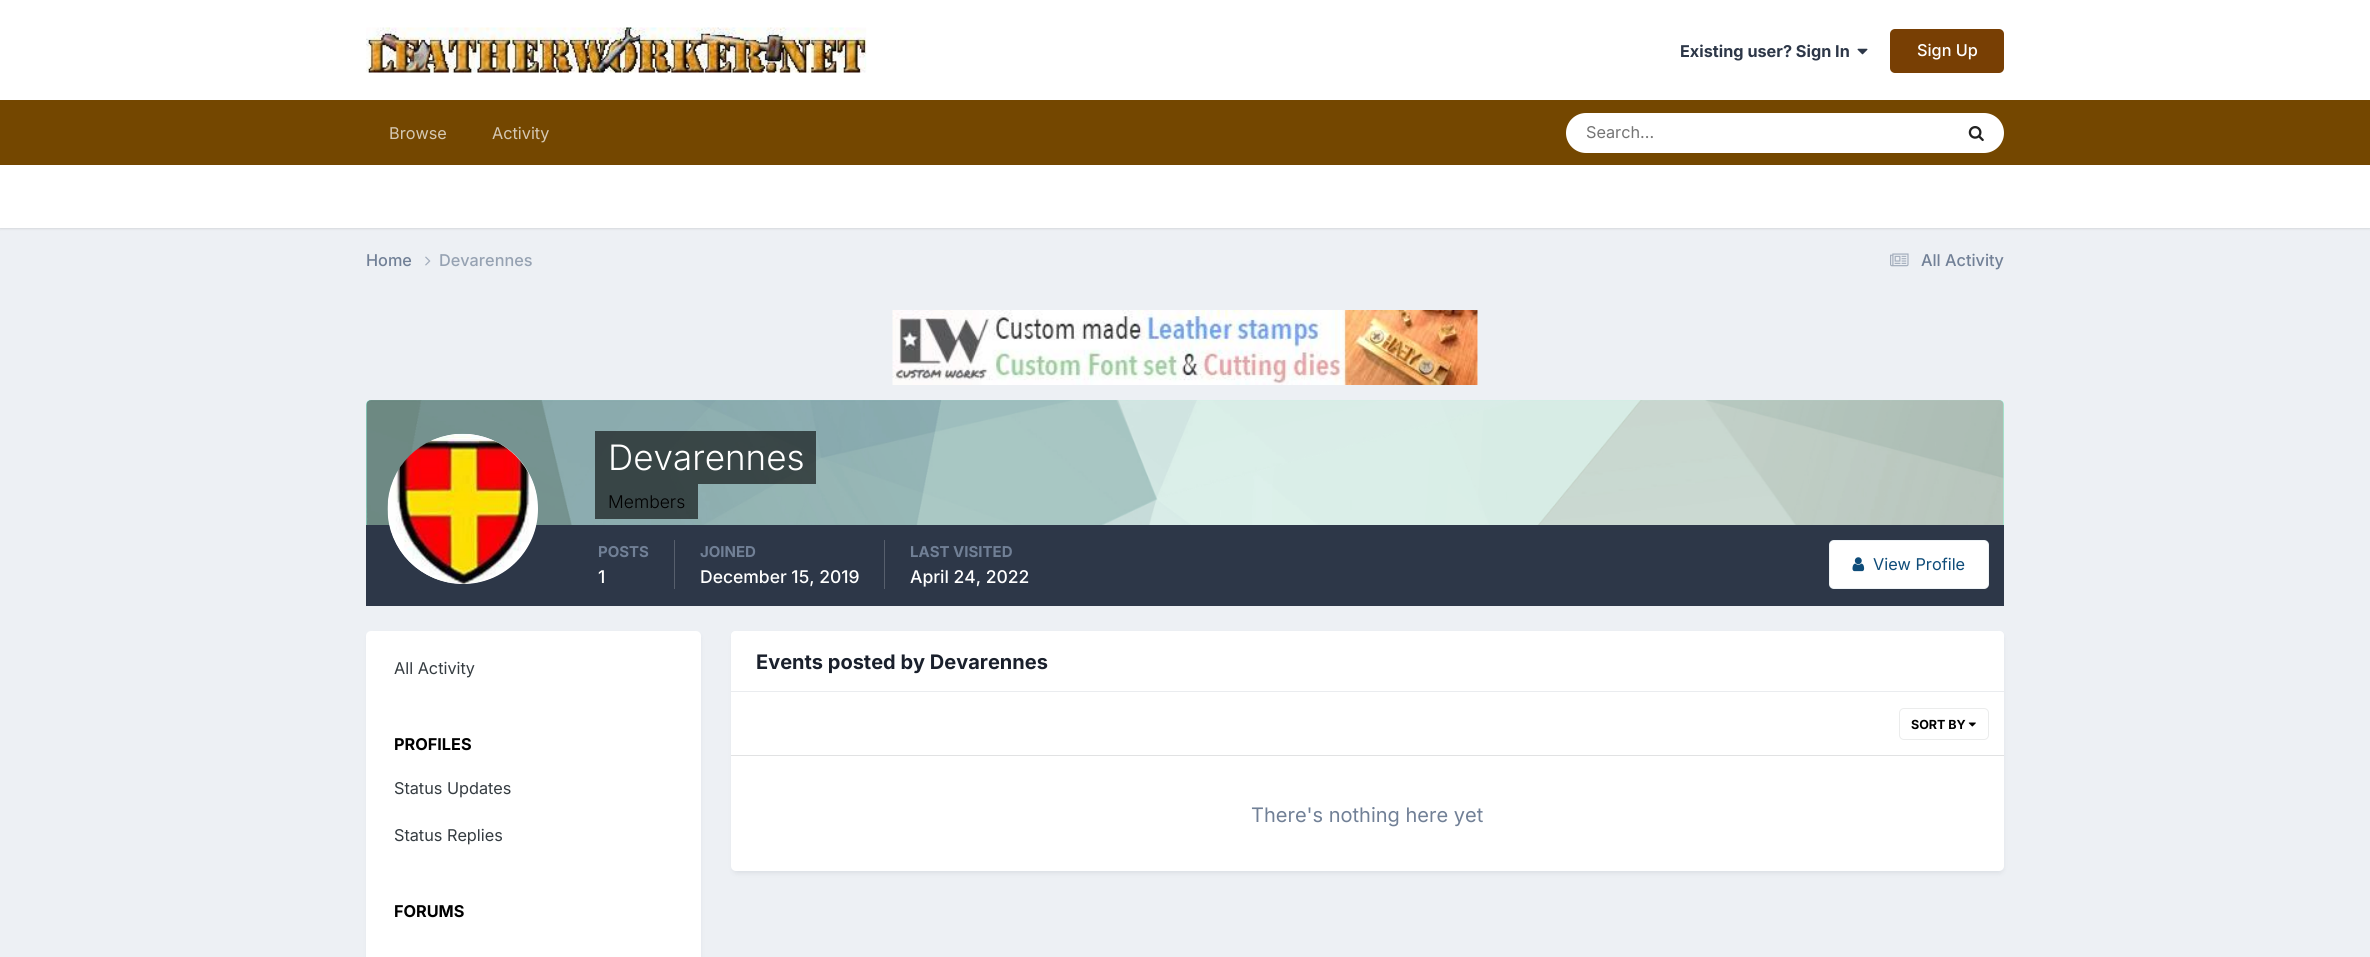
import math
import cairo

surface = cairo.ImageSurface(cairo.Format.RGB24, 2370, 957)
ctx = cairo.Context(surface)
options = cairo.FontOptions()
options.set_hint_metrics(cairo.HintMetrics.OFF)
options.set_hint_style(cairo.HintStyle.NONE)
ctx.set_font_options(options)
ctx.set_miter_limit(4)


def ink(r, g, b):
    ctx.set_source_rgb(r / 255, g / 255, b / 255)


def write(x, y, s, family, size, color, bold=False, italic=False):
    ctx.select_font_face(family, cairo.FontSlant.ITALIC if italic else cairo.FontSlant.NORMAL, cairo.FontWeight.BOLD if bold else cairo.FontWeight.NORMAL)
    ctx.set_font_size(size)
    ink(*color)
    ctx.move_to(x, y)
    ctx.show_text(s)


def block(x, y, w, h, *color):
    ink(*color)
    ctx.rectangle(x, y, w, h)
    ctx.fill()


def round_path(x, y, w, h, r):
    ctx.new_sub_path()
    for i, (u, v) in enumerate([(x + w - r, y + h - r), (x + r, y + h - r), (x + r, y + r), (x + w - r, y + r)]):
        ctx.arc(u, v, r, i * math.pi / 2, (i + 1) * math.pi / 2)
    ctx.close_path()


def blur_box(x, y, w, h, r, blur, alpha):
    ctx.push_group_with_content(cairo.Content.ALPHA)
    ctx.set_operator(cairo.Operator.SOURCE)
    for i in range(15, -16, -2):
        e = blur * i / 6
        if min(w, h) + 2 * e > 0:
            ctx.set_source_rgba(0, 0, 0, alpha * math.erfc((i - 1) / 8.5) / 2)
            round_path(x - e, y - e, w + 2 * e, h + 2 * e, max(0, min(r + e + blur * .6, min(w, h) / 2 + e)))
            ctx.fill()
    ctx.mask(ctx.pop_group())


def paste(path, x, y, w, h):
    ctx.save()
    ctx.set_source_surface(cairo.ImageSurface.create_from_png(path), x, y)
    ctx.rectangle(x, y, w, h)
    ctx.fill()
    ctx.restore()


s1 = dict(family="Inter", size=16.25, color=(45, 55, 72), bold=True)
s2 = dict(family="Inter Medium", size=16.25, color=(255, 255, 255))
s3 = dict(family="Inter", size=16.25, color=(213, 200, 179))
s4 = dict(family="Inter", size=16.25, color=(117, 117, 117))
s5 = dict(family="Inter Medium", size=16.25, color=(113, 128, 150))
s6 = dict(family="Inter Medium", size=16.25, color=(150, 162, 178))
s7 = dict(family="Inter Light", size=35, color=(255, 255, 255))
s8 = dict(family="Inter Light", size=17.5, color=(0, 0, 0))
s9 = dict(family="Inter", size=15, color=(113, 128, 150), bold=True)
s10 = dict(family="Inter Medium", size=17.5, color=(255, 255, 255))
s11 = dict(family="Inter", size=16.25, color=(14, 76, 121))
s12 = dict(family="Inter", size=16.25, color=(53, 60, 65))
s13 = dict(family="Inter", size=16.25, color=(0, 0, 0), bold=True)
s14 = dict(family="Inter", size=20, color=(26, 32, 44), bold=True)
s15 = dict(family="Inter", size=12.5, color=(0, 0, 0), bold=True)
s16 = dict(family="Inter", size=20, color=(113, 128, 150))

ink(237, 240, 244)
ctx.paint()
block(0, 0, 2370, 100, 255, 255, 255)
paste("pic1.png", 366, 27, 501, 46)
write(1680, 57, "Existing user? Sign In", **s1)
paste("pic2.png", 1857, 48, 11, 7)
ink(120, 63, 4)
round_path(1890, 29, 114, 44, 5)
ctx.fill()
write(1917, 56, "Sign Up", **s2)
block(0, 100, 2370, 65, 116, 71, 0)
write(389, 139, "Browse", **s3)
write(492, 139, "Activity", **s3)
ink(255, 255, 255)
round_path(1566, 113, 438, 40, 20)
ctx.fill()
write(1586, 138, "Search...", **s4)
paste("pic3.png", 1968, 126, 16, 16)
ink(0, 0, 0)
blur_box(0, 166, 2370, 63, 0, 1, 0.1)
block(0, 165, 2370, 63, 255, 255, 255)
write(366, 266, "Home", **s5)
paste("pic4.png", 425, 256, 6, 10)
write(439, 266, "Devarennes", **s6)
paste("pic5.png", 1890, 253, 19, 14)
write(1921, 266, "All Activity", **s5)
block(1477, 310, 1, 75, 247, 250, 252)
paste("pic6.png", 892, 310, 586, 75)
ink(153, 255, 230)
ctx.new_path()
ctx.move_to(371, 400)
ctx.line_to(1999, 400)
ctx.curve_to(2002, 400, 2004, 402, 2004, 405)
ctx.line_to(2004, 525)
ctx.line_to(366, 525)
ctx.line_to(366, 405)
ctx.curve_to(366, 402, 368, 400, 371, 400)
ctx.close_path()
ctx.fill()
paste("pic7.png", 366, 400, 1638, 125)
block(366, 525, 1638, 81, 45, 55, 72)
ink(255, 255, 255)
ctx.arc(463, 509, 75, 0, 2 * math.pi)
ctx.fill()
paste("pic8.png", 387, 433, 150, 151)
ctx.set_source_rgba(0, 0, 0, 0.6)
ctx.rectangle(595, 431, 221, 53)
ctx.fill()
write(608, 470, "Devarennes", **s7)
ctx.set_source_rgba(0, 0, 0, 0.6)
ctx.rectangle(595, 484, 103, 35)
ctx.fill()
write(608, 508, "Members", **s8)
block(674, 540, 1, 49, 87, 95, 109)
write(598, 557, "POSTS", **s9)
write(598, 583, "1", **s10)
block(884, 540, 1, 49, 87, 95, 109)
write(700, 557, "JOINED", **s9)
write(700, 583, "December 15, 2019", **s10)
write(910, 557, "LAST VISITED", **s9)
write(910, 583, "April 24, 2022", **s10)
round_path(1829, 540, 160, 49, 5)
ctx.fill()
round_path(1829.5, 540.5, 159, 48, 4.5)
ctx.set_source_rgba(0.055, 0.298, 0.475, 0.07)
ctx.set_line_width(1)
ctx.stroke()
paste("pic9.png", 1852, 557, 13, 15)
write(1873, 570, "View Profile", **s11)
ink(45, 55, 72)
blur_box(368, 635, 332, 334, 4, 2.5, 0.1)
ink(255, 255, 255)
round_path(366, 631, 335, 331, 5)
ctx.fill()
write(394, 674, "All Activity", **s12)
write(394, 750, "PROFILES", **s13)
write(394, 794, "Status Updates", **s12)
write(394, 841, "Status Replies", **s12)
write(394, 917, "FORUMS", **s13)
ink(45, 55, 72)
blur_box(733, 635, 1270, 238, 4, 2.5, 0.1)
ink(255, 255, 255)
round_path(731, 631, 1273, 240, 5)
ctx.fill()
ctx.new_path()
ctx.move_to(736, 631)
ctx.line_to(1999, 631)
ctx.curve_to(2002, 631, 2004, 633, 2004, 636)
ctx.line_to(2004, 693)
ctx.line_to(731, 693)
ctx.line_to(731, 636)
ctx.curve_to(731, 633, 733, 631, 736, 631)
ctx.close_path()
ctx.fill()
block(731, 691, 1273, 1, 234, 236, 239)
write(756, 669, "Events posted by Devarennes", **s14)
block(731, 755, 1273, 1, 225, 226, 227)
paste("pic10.png", 1968, 722, 8, 5)
round_path(1899.5, 708.5, 89, 31, 4.5)
ink(235, 236, 236)
ctx.stroke()
write(1911, 729, "SORT BY", **s15)
write(1251, 822, "There's nothing here yet", **s16)
surface.write_to_png("screenshot.png")
